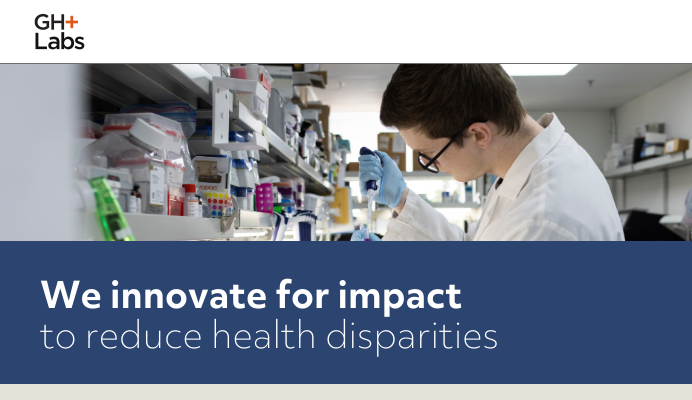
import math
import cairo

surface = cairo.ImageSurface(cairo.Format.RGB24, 692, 400)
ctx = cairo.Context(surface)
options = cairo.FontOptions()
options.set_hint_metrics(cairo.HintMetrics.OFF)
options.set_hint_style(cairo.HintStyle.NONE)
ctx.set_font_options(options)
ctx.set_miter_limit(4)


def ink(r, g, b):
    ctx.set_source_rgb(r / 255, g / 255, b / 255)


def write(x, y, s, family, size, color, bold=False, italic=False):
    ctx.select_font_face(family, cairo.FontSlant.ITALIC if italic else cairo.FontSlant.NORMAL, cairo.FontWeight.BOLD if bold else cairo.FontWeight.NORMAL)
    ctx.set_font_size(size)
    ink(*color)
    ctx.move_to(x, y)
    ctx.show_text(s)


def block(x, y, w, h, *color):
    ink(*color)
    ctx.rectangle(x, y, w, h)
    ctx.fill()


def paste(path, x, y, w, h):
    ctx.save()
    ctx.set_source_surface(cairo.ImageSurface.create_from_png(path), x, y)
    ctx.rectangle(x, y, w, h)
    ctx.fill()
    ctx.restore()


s1 = dict(family="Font", size=36, color=(255, 255, 255), bold=True)
s2 = dict(family="Font ExtraLight", size=36, color=(255, 255, 255))

ink(255, 255, 255)
ctx.paint()
block(0, 63, 692, 1, 109, 109, 109)
paste("pic1.png", 34, 13, 51, 37)
paste("pic2.png", 0, 64, 692, 177)
block(0, 241, 692, 143, 43, 69, 112)
write(40, 308, "We innovate for impact", **s1)
write(40, 348, "to reduce health disparities", **s2)
block(0, 384, 692, 16, 229, 226, 215)
surface.write_to_png("screenshot.png")
